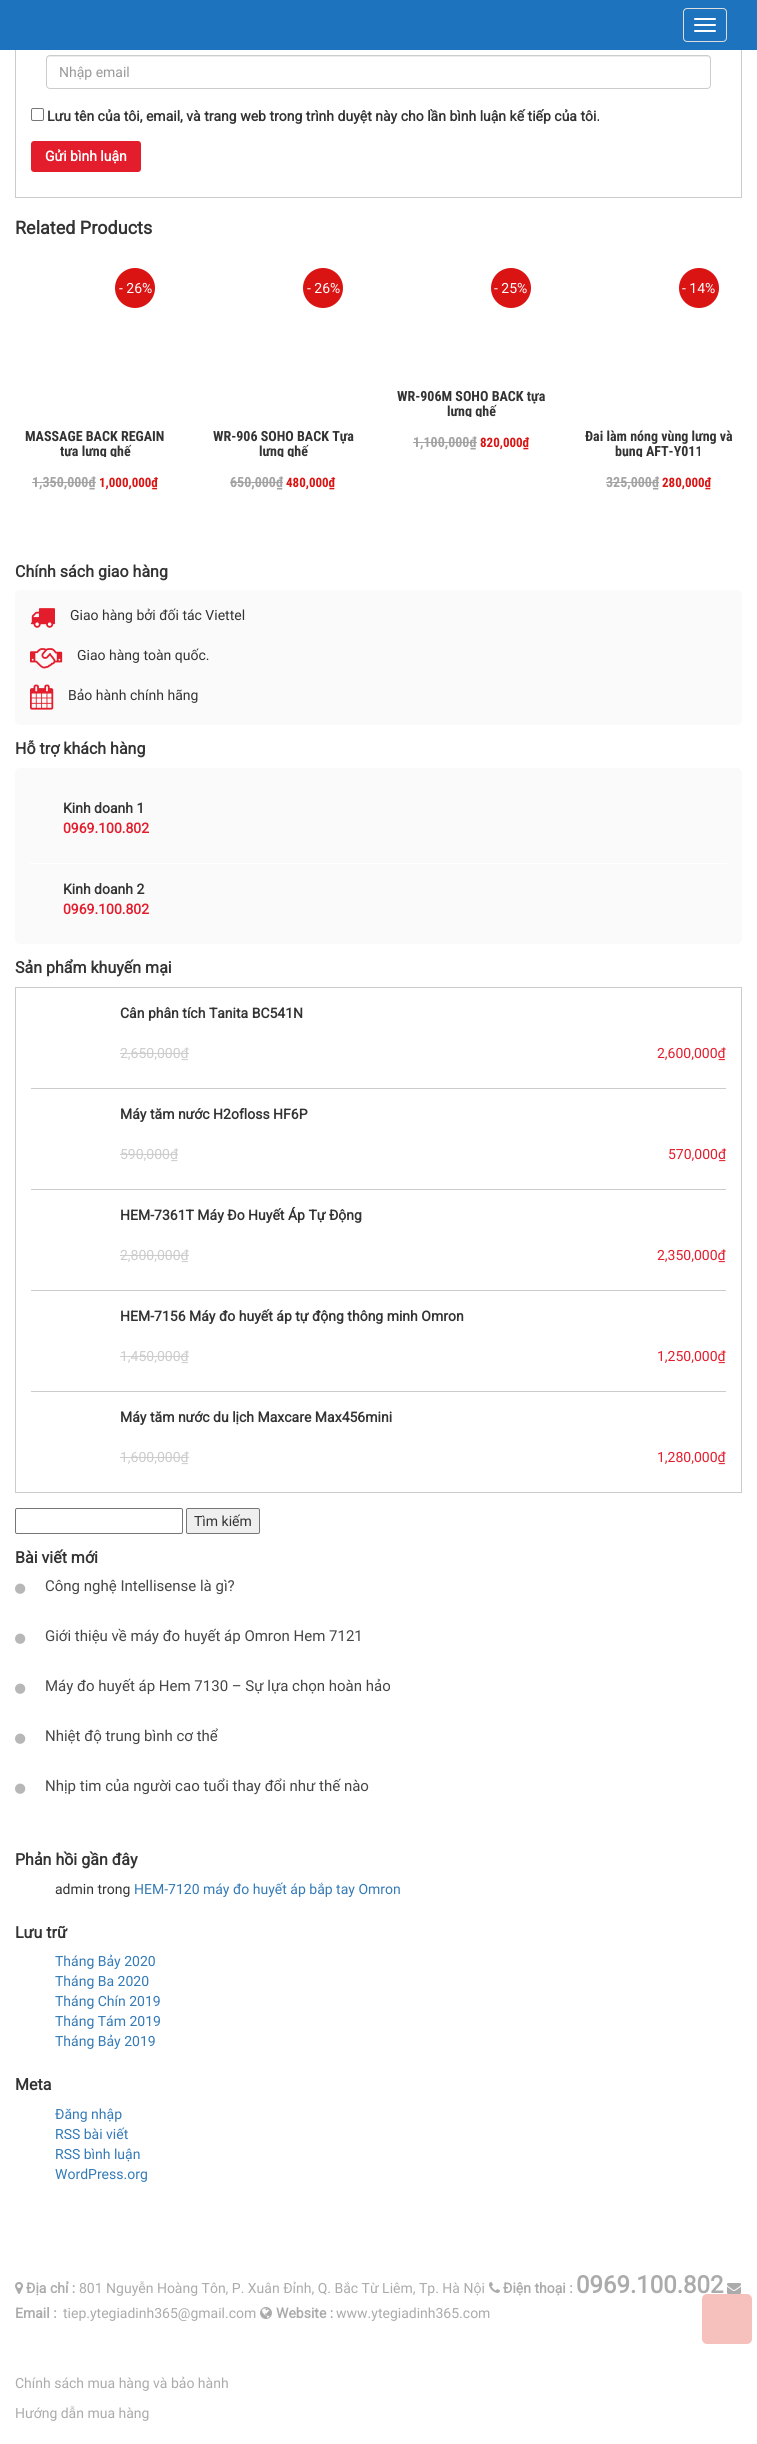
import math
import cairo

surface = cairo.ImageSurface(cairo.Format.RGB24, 757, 2444)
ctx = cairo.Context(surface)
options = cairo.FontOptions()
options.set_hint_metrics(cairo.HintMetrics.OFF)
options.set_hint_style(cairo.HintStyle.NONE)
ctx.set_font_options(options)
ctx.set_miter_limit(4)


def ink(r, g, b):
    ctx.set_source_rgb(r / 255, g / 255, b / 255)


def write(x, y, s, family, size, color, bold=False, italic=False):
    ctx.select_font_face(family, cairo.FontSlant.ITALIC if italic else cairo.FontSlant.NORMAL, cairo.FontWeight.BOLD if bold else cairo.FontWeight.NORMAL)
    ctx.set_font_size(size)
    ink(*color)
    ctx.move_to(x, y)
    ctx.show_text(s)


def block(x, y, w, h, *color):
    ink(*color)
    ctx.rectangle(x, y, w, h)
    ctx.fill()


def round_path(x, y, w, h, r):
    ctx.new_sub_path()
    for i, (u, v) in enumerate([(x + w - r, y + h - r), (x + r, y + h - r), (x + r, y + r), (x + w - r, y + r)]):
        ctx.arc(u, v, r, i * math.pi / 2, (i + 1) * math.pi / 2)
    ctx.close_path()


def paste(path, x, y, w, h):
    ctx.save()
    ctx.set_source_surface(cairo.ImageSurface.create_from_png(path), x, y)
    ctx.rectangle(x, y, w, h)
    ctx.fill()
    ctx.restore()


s1 = dict(family="Roboto", size=14, color=(153, 153, 153))
s2 = dict(family="Roboto", size=14, color=(51, 51, 51), bold=True)
s3 = dict(family="Roboto", size=14, color=(255, 255, 255), bold=True)
s4 = dict(family="Roboto", size=18, color=(51, 51, 51), bold=True)
s5 = dict(family="Roboto", size=14, color=(255, 255, 255))
s6 = dict(family="Roboto Condensed", size=14, color=(51, 51, 51), bold=True)
s7 = dict(family="Roboto Condensed", size=14, color=(163, 163, 163), bold=True)
s8 = dict(family="Roboto Condensed", size=13, color=(218, 19, 19), bold=True)
s9 = dict(family="Roboto", size=16, color=(51, 51, 51), bold=True)
s10 = dict(family="Roboto", size=14, color=(51, 51, 51))
s11 = dict(family="Roboto", size=14, color=(227, 29, 44), bold=True)
s12 = dict(family="Roboto", size=14, color=(204, 204, 204))
s13 = dict(family="Roboto", size=14, color=(227, 29, 44))
s14 = dict(family="Roboto", size=15, color=(70, 70, 70))
s15 = dict(family="Roboto", size=14, color=(51, 122, 183))
s16 = dict(family="Roboto", size=14, color=(171, 171, 171), bold=True)
s17 = dict(family="Roboto", size=14, color=(171, 171, 171))
s18 = dict(family="Roboto", size=24, color=(171, 171, 171), bold=True)

ink(255, 255, 255)
ctx.paint()
ctx.rectangle(15.5, -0.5, 726, 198)
ink(204, 204, 204)
ctx.set_line_width(1)
ctx.stroke()
block(0, 0, 757, 50, 30, 115, 190)
round_path(683.5, 8.5, 43, 33, 3.5)
ink(221, 221, 221)
ctx.stroke()
ink(255, 255, 255)
round_path(694, 18, 22, 2, 1)
ctx.fill()
round_path(694, 24, 22, 2, 1)
ctx.fill()
round_path(694, 30, 22, 2, 1)
ctx.fill()
ink(236, 236, 236)
ctx.new_path()
ctx.move_to(50, 57)
ctx.line_to(707, 57)
ctx.curve_to(709, 57, 710, 58, 710, 60)
ctx.line_to(710, 59)
ctx.curve_to(710, 57, 709, 56, 707, 56)
ctx.line_to(50, 56)
ctx.curve_to(48, 56, 47, 57, 47, 59)
ctx.line_to(47, 60)
ctx.curve_to(47, 58, 48, 57, 50, 57)
ctx.close_path()
ctx.fill()
round_path(46.5, 55.5, 664, 33, 3.5)
ink(204, 204, 204)
ctx.stroke()
write(59, 77, "Nhập email", **s1)
round_path(31.5, 108.5, 12, 12, 1.5)
ink(118, 118, 118)
ctx.stroke()
write(47, 121, "Lưu tên của tôi, email, và trang web trong trình duyệt này cho lần bình luận kế tiếp của tôi.", **s2)
ink(227, 29, 44)
round_path(31, 141, 110, 31, 3)
ctx.fill()
write(45, 161, "Gửi bình luận", **s3)
write(15, 234, "Related Products", **s4)
ink(218, 19, 19)
ctx.new_path()
ctx.arc(135, 288, 20, 0, 2 * math.pi)
ctx.fill()
write(119, 293, "- 26%", **s5)
write(25, 441, "MASSAGE BACK REGAIN", **s6)
ctx.save()
ctx.rectangle(15, 422, 160, 35)
ctx.clip()
write(60, 456, "tựa lưng ghế", **s6)
ctx.restore()
write(32, 487, "1,350,000₫", **s7)
block(32, 482, 64, 1, 163, 163, 163)
write(99, 487, "1,000,000₫", **s8)
ctx.new_path()
ctx.arc(323, 288, 20, 0, 2 * math.pi)
ctx.fill()
write(307, 293, "- 26%", **s5)
write(213, 441, "WR-906 SOHO BACK Tựa", **s6)
ctx.save()
ctx.rectangle(203, 422, 160, 35)
ctx.clip()
write(259, 456, "lưng ghế", **s6)
ctx.restore()
write(230, 487, "650,000₫", **s7)
block(230, 482, 53, 1, 163, 163, 163)
write(286, 487, "480,000₫", **s8)
ctx.new_path()
ctx.arc(511, 288, 20, 0, 2 * math.pi)
ctx.fill()
write(494, 293, "- 25%", **s5)
write(397, 401, "WR-906M SOHO BACK tựa", **s6)
ctx.save()
ctx.rectangle(391, 382, 160, 35)
ctx.clip()
write(447, 416, "lưng ghế", **s6)
ctx.restore()
write(413, 447, "1,100,000₫", **s7)
block(413, 442, 64, 1, 163, 163, 163)
write(480, 447, "820,000₫", **s8)
ctx.new_path()
ctx.arc(699, 288, 20, 0, 2 * math.pi)
ctx.fill()
write(682, 293, "- 14%", **s5)
write(585, 441, "Đai làm nóng vùng lưng và", **s6)
ctx.save()
ctx.rectangle(579, 422, 160, 35)
ctx.clip()
write(615, 456, "bụng AFT-Y011", **s6)
ctx.restore()
write(606, 487, "325,000₫", **s7)
block(606, 482, 53, 1, 163, 163, 163)
write(662, 487, "280,000₫", **s8)
write(15, 577, "Chính sách giao hàng", **s9)
ink(250, 250, 250)
round_path(15, 590, 727, 135, 5)
ctx.fill()
paste("pic1.png", 30, 608, 25, 20)
write(70, 620, "Giao hàng bởi đối tác Viettel", **s10)
paste("pic2.png", 30, 648, 33, 21)
write(77, 660, "Giao hàng toàn quốc.", **s10)
paste("pic3.png", 30, 684, 24, 26)
write(68, 700, "Bảo hành chính hãng", **s10)
write(15, 754, "Hỗ trợ khách hàng", **s9)
ink(250, 250, 250)
round_path(15, 768, 727, 176, 5)
ctx.fill()
block(30, 863, 697, 1, 255, 255, 255)
write(63, 813, "Kinh doanh 1", **s2)
write(63, 833, "0969.100.802", **s11)
write(63, 894, "Kinh doanh 2", **s2)
write(63, 914, "0969.100.802", **s11)
write(15, 973, "Sản phẩm khuyến mại", **s9)
ctx.rectangle(15.5, 987.5, 726, 505)
ink(204, 204, 204)
ctx.stroke()
block(31, 1088, 695, 1, 204, 204, 204)
write(120, 1018, "Cân phân tích Tanita BC541N", **s2)
write(120, 1058, "2,650,000₫", **s12)
block(120, 1053, 69, 1, 204, 204, 204)
write(657, 1058, "2,600,000₫", **s13)
block(31, 1189, 695, 1, 204, 204, 204)
write(120, 1119, "Máy tăm nước H2ofloss HF6P", **s2)
write(120, 1159, "590,000₫", **s12)
block(120, 1154, 58, 1, 204, 204, 204)
write(668, 1159, "570,000₫", **s13)
block(31, 1290, 695, 1, 204, 204, 204)
write(120, 1220, "HEM-7361T Máy Đo Huyết Áp Tự Động", **s2)
write(120, 1260, "2,800,000₫", **s12)
block(120, 1255, 69, 1, 204, 204, 204)
write(657, 1260, "2,350,000₫", **s13)
block(31, 1391, 695, 1, 204, 204, 204)
write(120, 1321, "HEM-7156 Máy đo huyết áp tự động thông minh Omron", **s2)
write(120, 1361, "1,450,000₫", **s12)
block(120, 1356, 69, 1, 204, 204, 204)
write(657, 1361, "1,250,000₫", **s13)
write(120, 1422, "Máy tăm nước du lịch Maxcare Max456mini", **s2)
write(120, 1462, "1,600,000₫", **s12)
block(120, 1457, 69, 1, 204, 204, 204)
write(657, 1462, "1,280,000₫", **s13)
round_path(15.5, 1508.5, 167, 25, 1.5)
ink(118, 118, 118)
ctx.stroke()
ink(239, 239, 239)
round_path(186.5, 1508.5, 73, 25, 1.5)
ctx.fill_preserve()
ink(118, 118, 118)
ctx.stroke()
write(194, 1526, "Tìm kiếm", **s10)
write(15, 1563, "Bài viết mới", **s9)
paste("pic4.png", 15, 1583, 11, 11)
write(45, 1591, "Công nghệ Intellisense là gì?", **s14)
paste("pic4.png", 15, 1633, 11, 11)
write(45, 1641, "Giới thiệu về máy đo huyết áp Omron Hem 7121", **s14)
paste("pic4.png", 15, 1683, 11, 11)
write(45, 1691, "Máy đo huyết áp Hem 7130 – Sự lựa chọn hoàn hảo", **s14)
paste("pic4.png", 15, 1733, 11, 11)
write(45, 1741, "Nhiệt độ trung bình cơ thể", **s14)
paste("pic4.png", 15, 1783, 11, 11)
write(45, 1791, "Nhịp tim của người cao tuổi thay đổi như thế nào", **s14)
write(15, 1865, "Phản hồi gần đây", **s9)
write(55, 1894, "admin trong", **s10)
write(134, 1894, "HEM-7120 máy đo huyết áp bắp tay Omron", **s15)
write(15, 1938, "Lưu trữ", **s9)
write(55, 1966, "Tháng Bảy 2020", **s15)
write(55, 1986, "Tháng Ba 2020", **s15)
write(55, 2006, "Tháng Chín 2019", **s15)
write(55, 2026, "Tháng Tám 2019", **s15)
write(55, 2046, "Tháng Bảy 2019", **s15)
write(15, 2090, "Meta", **s9)
write(55, 2119, "Đăng nhập", **s15)
write(55, 2139, "RSS bài viết", **s15)
write(55, 2159, "RSS bình luận", **s15)
write(55, 2179, "WordPress.org", **s15)
paste("pic5.png", 15, 2282, 8, 12)
write(26, 2293, "Địa chỉ :", **s16)
write(79, 2293, "801 Nguyễn Hoàng Tôn, P. Xuân Đỉnh, Q. Bắc Từ Liêm, Tp. Hà Nội", **s17)
paste("pic6.png", 489, 2282, 11, 11)
write(503, 2293, "Điện thoại :", **s16)
write(576, 2293, "0969.100.802", **s18)
paste("pic7.png", 727, 2283, 14, 11)
write(15, 2318, "Email :", **s16)
write(63, 2318, "tiep.ytegiadinh365@gmail.com", **s17)
paste("pic8.png", 260, 2307, 12, 12)
write(276, 2318, "Website :", **s16)
write(336, 2318, "www.ytegiadinh365.com", **s17)
write(15, 2388, "Chính sách mua hàng và bảo hành", **s17)
write(15, 2418, "Hướng dẫn mua hàng", **s17)
ink(246, 193, 188)
round_path(702, 2294, 50, 50, 5)
ctx.fill()
surface.write_to_png("screenshot.png")
